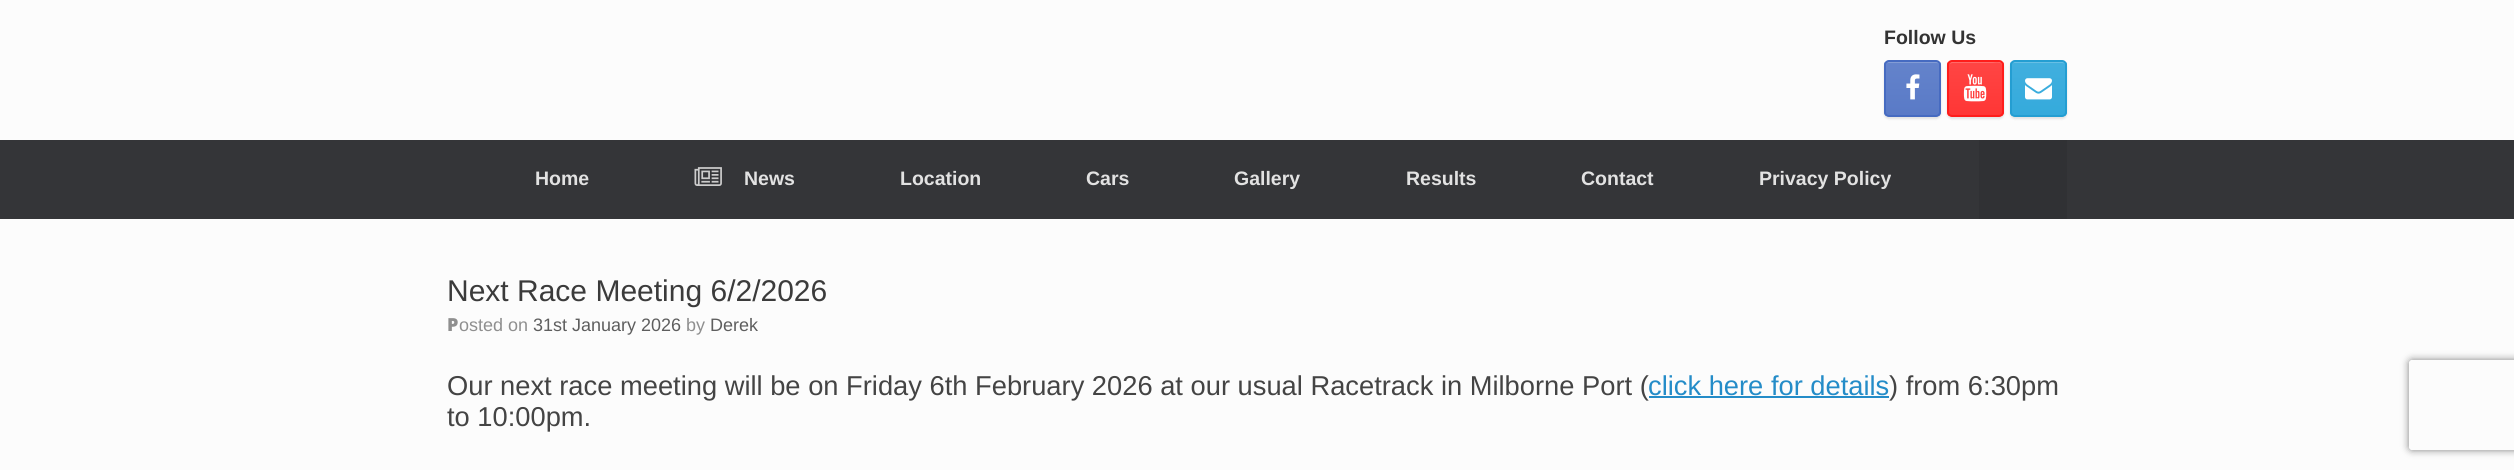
import math
import cairo

surface = cairo.ImageSurface(cairo.Format.RGB24, 2514, 470)
ctx = cairo.Context(surface)
options = cairo.FontOptions()
options.set_hint_metrics(cairo.HintMetrics.OFF)
options.set_hint_style(cairo.HintStyle.NONE)
ctx.set_font_options(options)
ctx.set_miter_limit(4)


def ink(r, g, b):
    ctx.set_source_rgb(r / 255, g / 255, b / 255)


def write(x, y, s, family, size, color, bold=False, italic=False):
    ctx.select_font_face(family, cairo.FontSlant.ITALIC if italic else cairo.FontSlant.NORMAL, cairo.FontWeight.BOLD if bold else cairo.FontWeight.NORMAL)
    ctx.set_font_size(size)
    ink(*color)
    ctx.move_to(x, y)
    ctx.show_text(s)


def block(x, y, w, h, *color):
    ink(*color)
    ctx.rectangle(x, y, w, h)
    ctx.fill()


def round_path(x, y, w, h, r):
    ctx.new_sub_path()
    for i, (u, v) in enumerate([(x + w - r, y + h - r), (x + r, y + h - r), (x + r, y + r), (x + w - r, y + r)]):
        ctx.arc(u, v, r, i * math.pi / 2, (i + 1) * math.pi / 2)
    ctx.close_path()


def blur_box(x, y, w, h, r, blur, alpha):
    ctx.push_group_with_content(cairo.Content.ALPHA)
    ctx.set_operator(cairo.Operator.SOURCE)
    for i in range(15, -16, -2):
        e = blur * i / 6
        if min(w, h) + 2 * e > 0:
            ctx.set_source_rgba(0, 0, 0, alpha * math.erfc((i - 1) / 8.5) / 2)
            round_path(x - e, y - e, w + 2 * e, h + 2 * e, max(0, min(r + e + blur * .6, min(w, h) / 2 + e)))
            ctx.fill()
    ctx.mask(ctx.pop_group())


def paste(path, x, y, w, h):
    ctx.save()
    ctx.set_source_surface(cairo.ImageSurface.create_from_png(path), x, y)
    ctx.rectangle(x, y, w, h)
    ctx.fill()
    ctx.restore()


s1 = dict(family="Liberation Sans", size=19.5, color=(51, 51, 51), bold=True)
s2 = dict(family="Liberation Sans", size=19.5, color=(226, 226, 226), bold=True)
s3 = dict(family="Liberation Sans", size=30, color=(59, 59, 59))
s4 = dict(family="Noto Sans Black", size=18, color=(143, 143, 143))
s5 = dict(family="Liberation Sans", size=18, color=(143, 143, 143))
s6 = dict(family="Liberation Sans", size=18, color=(94, 94, 94))
s7 = dict(family="Liberation Sans", size=27.3, color=(68, 68, 68))
s8 = dict(family="Liberation Sans", size=27.3, color=(36, 140, 200))

ink(252, 252, 252)
ctx.paint()
write(1884, 44, "Follow Us", **s1)
ink(0, 0, 0)
blur_box(1884, 62, 57, 57, 5, 1, 0.1)
ctx.save()
round_path(1884, 60, 57, 57, 5)
ctx.clip()
gradient = cairo.LinearGradient(1886, 116, 1886, 62)
gradient.add_color_stop_rgba(0, 0.349, 0.478, 0.78, 1)
gradient.add_color_stop_rgba(1, 0.392, 0.514, 0.796, 1)
ctx.set_source(gradient)
ctx.rectangle(1884, 62, 57, 54)
ctx.fill()
ctx.restore()
ink(131, 156, 213)
ctx.new_path()
ctx.move_to(1888, 63)
ctx.line_to(1936, 63)
ctx.curve_to(1938, 63, 1940, 64, 1940, 66)
ctx.curve_to(1940, 60, 1933, 62, 1929, 62)
ctx.line_to(1897, 62)
ctx.curve_to(1893, 62, 1886, 60, 1886, 66)
ctx.curve_to(1886, 64, 1887, 63, 1888, 63)
ctx.close_path()
ctx.fill()
round_path(1885, 61, 55, 55, 4)
ink(70, 107, 193)
ctx.stroke()
paste("pic1.png", 1906, 74, 14, 26)
ink(0, 0, 0)
blur_box(1947, 62, 57, 57, 5, 1, 0.1)
ctx.save()
round_path(1947, 60, 57, 57, 5)
ctx.clip()
gradient = cairo.LinearGradient(1949, 116, 1949, 62)
gradient.add_color_stop_rgba(0, 1, 0.212, 0.208, 1)
gradient.add_color_stop_rgba(1, 1, 0.271, 0.267, 1)
ctx.set_source(gradient)
ctx.rectangle(1947, 62, 57, 54)
ctx.fill()
ctx.restore()
ctx.set_source_rgba(1, 1, 1, 0.2)
ctx.new_path()
ctx.move_to(1952, 63)
ctx.line_to(1992, 63)
ctx.curve_to(1995, 63, 2002, 61, 2002, 66)
ctx.line_to(2002, 115)
ctx.curve_to(2003, 115, 2003, 114, 2003, 113)
ctx.line_to(2003, 65)
ctx.curve_to(2003, 63, 2002, 62, 2000, 62)
ctx.line_to(1952, 62)
ctx.curve_to(1951, 62, 1950, 63, 1949, 64)
ctx.close_path()
ctx.fill()
round_path(1948, 61, 55, 55, 4)
ink(255, 29, 27)
ctx.stroke()
paste("pic2.png", 1963, 74, 24, 28)
ink(0, 0, 0)
blur_box(2010, 62, 57, 57, 5, 1, 0.1)
ctx.save()
round_path(2010, 60, 57, 57, 5)
ctx.clip()
gradient = cairo.LinearGradient(2012, 116, 2012, 62)
gradient.add_color_stop_rgba(0, 0.204, 0.667, 0.863, 1)
gradient.add_color_stop_rgba(1, 0.255, 0.686, 0.871, 1)
ctx.set_source(gradient)
ctx.rectangle(2010, 62, 57, 54)
ctx.fill()
ctx.restore()
ink(103, 191, 229)
ctx.new_path()
ctx.move_to(2014, 63)
ctx.line_to(2062, 63)
ctx.curve_to(2064, 63, 2066, 64, 2066, 66)
ctx.curve_to(2066, 60, 2059, 62, 2055, 62)
ctx.line_to(2023, 62)
ctx.curve_to(2019, 62, 2012, 60, 2012, 66)
ctx.curve_to(2012, 64, 2013, 63, 2014, 63)
ctx.close_path()
ctx.fill()
round_path(2011, 61, 55, 55, 4)
ink(36, 158, 210)
ctx.stroke()
paste("pic3.png", 2025, 78, 27, 22)
block(0, 140, 2514, 79, 52, 53, 56)
write(535, 185, "Home", **s2)
paste("pic4.png", 694, 167, 28, 19)
write(744, 185, "News", **s2)
write(900, 185, "Location", **s2)
write(1086, 185, "Cars", **s2)
write(1234, 185, "Gallery", **s2)
write(1406, 185, "Results", **s2)
write(1581, 185, "Contact", **s2)
write(1759, 185, "Privacy Policy", **s2)
block(1979, 140, 88, 79, 48, 49, 52)
write(447, 301, "Next Race Meeting 6/2/2026", **s3)
write(447, 331, "P", **s4)
write(459, 331, "osted on", **s5)
write(533, 331, "31st January 2026", **s6)
write(686, 331, "by", **s5)
write(710, 331, "Derek", **s6)
write(447, 395, "Our next race meeting will be on Friday 6th February 2026 at our usual Racetrack in Milborne Port (", **s7)
write(1648, 395, "click here for details", **s8)
block(1649, 396, 240, 2, 36, 140, 200)
write(1889, 395, ") from 6:30pm", **s7)
write(447, 426, "to 10:00pm.", **s7)
ctx.save()
ctx.set_fill_rule(cairo.FillRule.EVEN_ODD)
ctx.new_path()
ctx.move_to(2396, 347)
ctx.line_to(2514, 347)
ctx.line_to(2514, 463)
ctx.line_to(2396, 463)
ctx.close_path()
ctx.move_to(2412, 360)
ctx.line_to(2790, 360)
ctx.curve_to(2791.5, 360, 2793, 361.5, 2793, 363)
ctx.line_to(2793, 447)
ctx.curve_to(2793, 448.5, 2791.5, 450, 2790, 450)
ctx.line_to(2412, 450)
ctx.curve_to(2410.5, 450, 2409, 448.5, 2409, 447)
ctx.line_to(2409, 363)
ctx.curve_to(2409, 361.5, 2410.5, 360, 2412, 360)
ctx.close_path()
ctx.clip()
ink(128, 128, 128)
blur_box(2409, 360, 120, 90, 3, 4, 1)
ctx.restore()
surface.write_to_png("screenshot.png")
